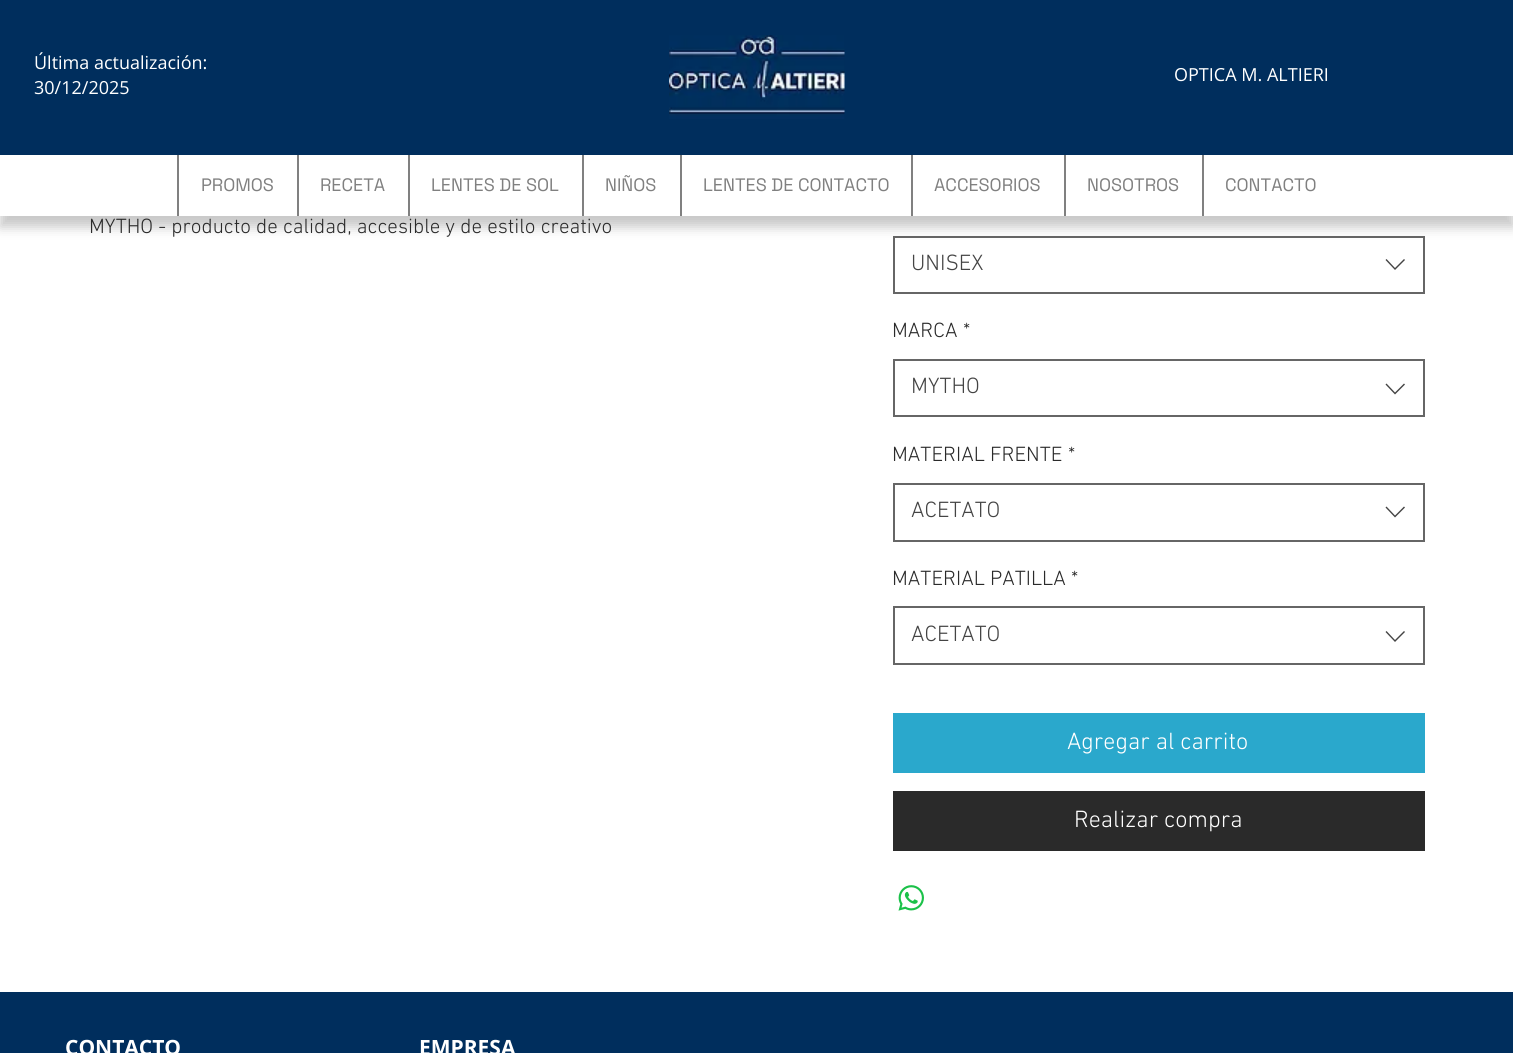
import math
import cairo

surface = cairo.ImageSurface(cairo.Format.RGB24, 1513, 1053)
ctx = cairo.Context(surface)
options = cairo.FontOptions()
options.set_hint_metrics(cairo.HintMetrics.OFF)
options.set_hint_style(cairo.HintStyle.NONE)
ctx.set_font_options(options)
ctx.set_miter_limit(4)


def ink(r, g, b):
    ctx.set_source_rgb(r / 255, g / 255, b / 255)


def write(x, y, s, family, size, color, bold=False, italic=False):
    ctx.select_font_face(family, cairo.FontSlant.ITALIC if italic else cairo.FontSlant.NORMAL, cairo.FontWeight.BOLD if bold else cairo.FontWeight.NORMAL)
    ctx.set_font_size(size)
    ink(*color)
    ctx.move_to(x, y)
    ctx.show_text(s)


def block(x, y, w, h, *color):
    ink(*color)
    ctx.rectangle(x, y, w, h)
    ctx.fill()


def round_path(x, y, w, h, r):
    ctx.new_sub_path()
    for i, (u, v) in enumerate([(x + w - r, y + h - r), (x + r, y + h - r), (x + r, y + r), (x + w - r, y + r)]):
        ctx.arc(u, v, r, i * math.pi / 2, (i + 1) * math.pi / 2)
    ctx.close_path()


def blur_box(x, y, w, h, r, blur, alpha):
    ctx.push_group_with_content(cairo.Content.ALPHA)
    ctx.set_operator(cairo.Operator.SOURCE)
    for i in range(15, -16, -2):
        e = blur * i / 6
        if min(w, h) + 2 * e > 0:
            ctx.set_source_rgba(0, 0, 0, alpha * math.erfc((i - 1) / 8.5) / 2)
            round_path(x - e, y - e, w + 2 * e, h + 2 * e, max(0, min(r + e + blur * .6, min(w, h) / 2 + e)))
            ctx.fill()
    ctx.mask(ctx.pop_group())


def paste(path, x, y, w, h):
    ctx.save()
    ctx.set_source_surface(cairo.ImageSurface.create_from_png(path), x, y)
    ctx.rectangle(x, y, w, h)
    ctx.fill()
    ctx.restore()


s1 = dict(family="Open Sans", size=18, color=(255, 255, 255))
s2 = dict(family="Space Grotesk", size=18, color=(128, 128, 128))
s3 = dict(family="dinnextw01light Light", size=21, color=(42, 42, 42))
s4 = dict(family="dinnextw01light Light", size=22.5, color=(68, 68, 68))
s5 = dict(family="dinnextw01light Light", size=24, color=(255, 255, 255))
s6 = dict(family="Open Sans", size=21, color=(255, 255, 255), bold=True)

ink(255, 255, 255)
ctx.paint()
block(0, 0, 1513, 155, 0, 46, 93)
write(34, 69, "Última actualización:", **s1)
write(34, 94, "30/12/2025", **s1)
paste("pic1.png", 669, 35, 176, 84)
write(1174, 81, "OPTICA M. ALTIERI", **s1)
ctx.rectangle(894, 237, 530, 56)
ink(102, 102, 102)
ctx.stroke()
ink(0, 0, 0)
blur_box(0, 165, 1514, 62, 0, 6, 0.22)
block(0, 155, 1513, 61, 255, 255, 255)
block(177, 155, 2, 61, 128, 128, 128)
write(201, 191, "PROMOS", **s2)
block(297, 155, 2, 61, 128, 128, 128)
write(320, 191, "RECETA", **s2)
block(408, 155, 2, 61, 128, 128, 128)
write(431, 191, "LENTES DE SOL", **s2)
block(582, 155, 2, 61, 128, 128, 128)
write(605, 191, "NIÑOS", **s2)
block(680, 155, 2, 61, 128, 128, 128)
write(703, 191, "LENTES DE CONTACTO", **s2)
block(911, 155, 2, 61, 128, 128, 128)
write(934, 191, "ACCESORIOS", **s2)
block(1064, 155, 2, 61, 128, 128, 128)
write(1087, 191, "NOSOTROS", **s2)
block(1202, 155, 2, 61, 128, 128, 128)
write(1225, 191, "CONTACTO", **s2)
write(89, 233, "MYTHO - producto de calidad, accesible y de estilo creativo", **s3)
write(911, 270, "UNISEX", **s4)
ctx.set_fill_rule(cairo.FillRule.EVEN_ODD)
ctx.new_path()
ctx.move_to(1404, 259)
ctx.line_to(1405, 260)
ctx.line_to(1395, 270)
ctx.line_to(1385.5, 260)
ctx.line_to(1386.5, 259)
ctx.line_to(1395, 268)
ctx.close_path()
ctx.fill()
write(892, 337, "MARCA", **s3)
write(963, 337, "*", **s3)
ctx.rectangle(894, 360, 530, 56)
ink(102, 102, 102)
ctx.stroke()
write(911, 393, "MYTHO", **s4)
ctx.new_path()
ctx.move_to(1404, 383.5)
ctx.line_to(1405, 384.5)
ctx.line_to(1395, 394.5)
ctx.line_to(1385.5, 384.5)
ctx.line_to(1386.5, 383.5)
ctx.line_to(1395, 392.5)
ctx.close_path()
ctx.fill()
write(892, 461, "MATERIAL FRENTE", **s3)
write(1068, 461, "*", **s3)
ctx.rectangle(894, 484, 530, 57)
ink(102, 102, 102)
ctx.stroke()
write(911, 517, "ACETATO", **s4)
ctx.new_path()
ctx.move_to(1404, 506.5)
ctx.line_to(1405, 507.5)
ctx.line_to(1395, 517.5)
ctx.line_to(1385.5, 507.5)
ctx.line_to(1386.5, 506.5)
ctx.line_to(1395, 515.5)
ctx.close_path()
ctx.fill()
write(892, 585, "MATERIAL PATILLA", **s3)
write(1071, 585, "*", **s3)
ctx.rectangle(894, 607, 530, 57)
ink(102, 102, 102)
ctx.stroke()
write(911, 641, "ACETATO", **s4)
ctx.new_path()
ctx.move_to(1404, 631)
ctx.line_to(1405, 632)
ctx.line_to(1395, 642)
ctx.line_to(1385.5, 632)
ctx.line_to(1386.5, 631)
ctx.line_to(1395, 640)
ctx.close_path()
ctx.fill()
block(893, 713, 532, 60, 42, 168, 204)
write(1067, 749, "Agregar al carrito", **s5)
block(893, 791, 532, 60, 42, 42, 42)
write(1074, 827, "Realizar compra", **s5)
paste("pic2.png", 898, 885, 26, 26)
block(0, 992, 1513, 61, 0, 46, 93)
write(65, 1055, "CONTACTO", **s6)
write(419, 1055, "EMPRESA", **s6)
surface.write_to_png("screenshot.png")
